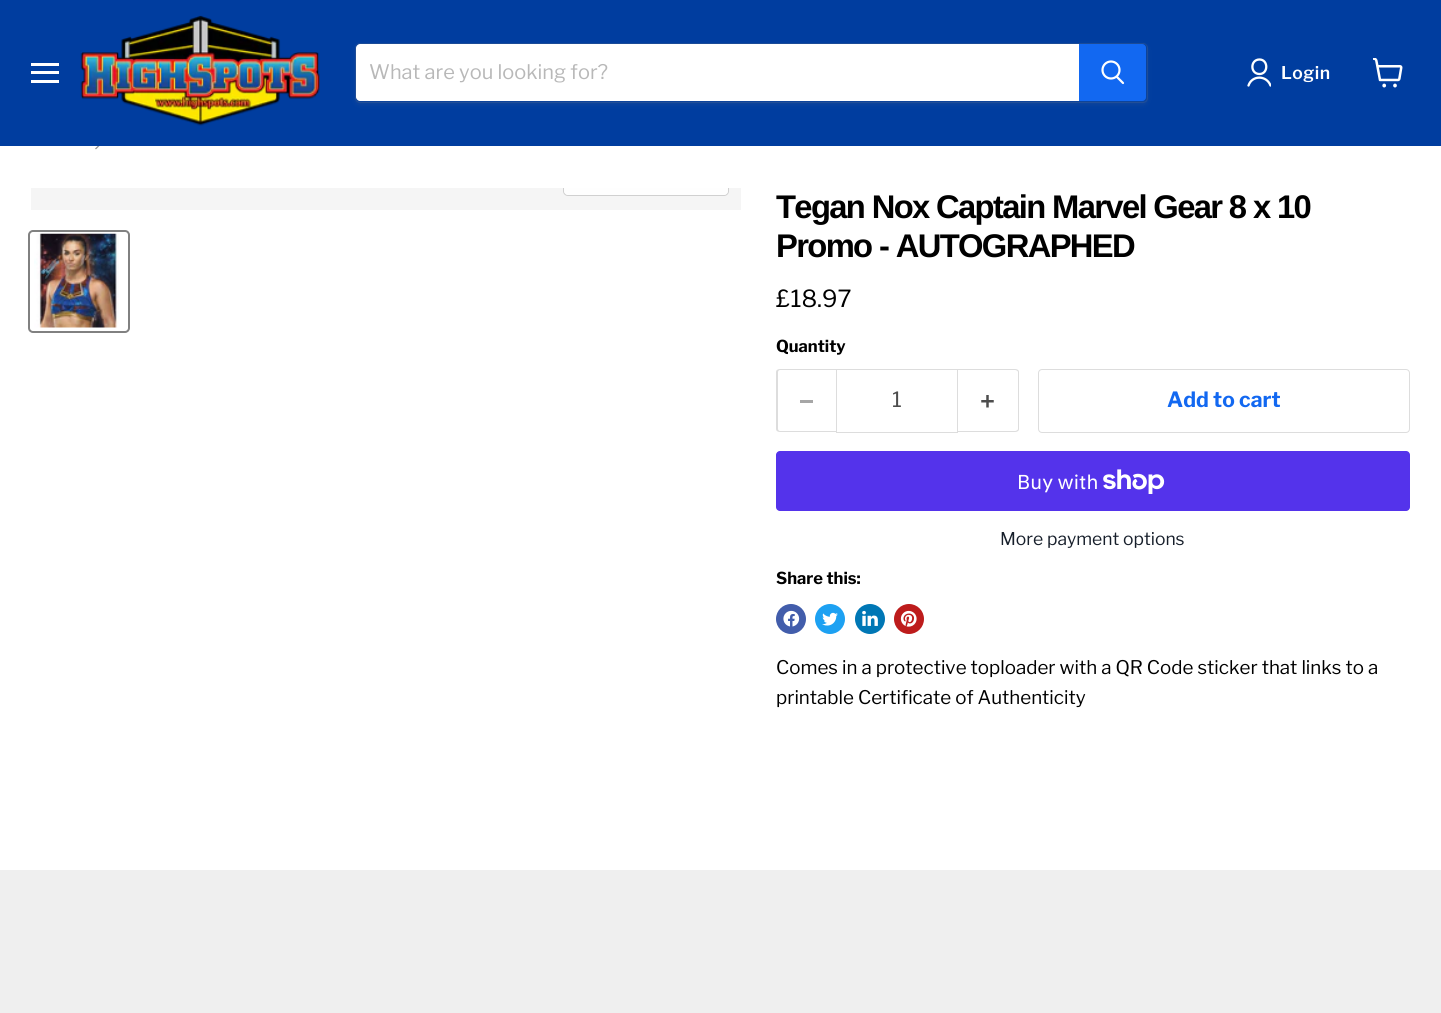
import math
import cairo

surface = cairo.ImageSurface(cairo.Format.RGB24, 1441, 1013)
ctx = cairo.Context(surface)
options = cairo.FontOptions()
options.set_hint_metrics(cairo.HintMetrics.OFF)
options.set_hint_style(cairo.HintStyle.NONE)
ctx.set_font_options(options)
ctx.set_miter_limit(4)


def ink(r, g, b):
    ctx.set_source_rgb(r / 255, g / 255, b / 255)


def write(x, y, s, family, size, color, bold=False, italic=False):
    ctx.select_font_face(family, cairo.FontSlant.ITALIC if italic else cairo.FontSlant.NORMAL, cairo.FontWeight.BOLD if bold else cairo.FontWeight.NORMAL)
    ctx.set_font_size(size)
    ink(*color)
    ctx.move_to(x, y)
    ctx.show_text(s)


def write_spaced(x, y, s, letter, word):
    ctx.move_to(x, y)
    for ch in s:
        ctx.show_text(ch)
        ctx.rel_move_to(letter + word * (ch == ' '), 0)


def block(x, y, w, h, *color):
    ink(*color)
    ctx.rectangle(x, y, w, h)
    ctx.fill()


def round_path(x, y, w, h, r):
    ctx.new_sub_path()
    for i, (u, v) in enumerate([(x + w - r, y + h - r), (x + r, y + h - r), (x + r, y + r), (x + w - r, y + r)]):
        ctx.arc(u, v, r, i * math.pi / 2, (i + 1) * math.pi / 2)
    ctx.close_path()


def blur_box(x, y, w, h, r, blur, alpha):
    ctx.push_group_with_content(cairo.Content.ALPHA)
    ctx.set_operator(cairo.Operator.SOURCE)
    for i in range(15, -16, -2):
        e = blur * i / 6
        if min(w, h) + 2 * e > 0:
            ctx.set_source_rgba(0, 0, 0, alpha * math.erfc((i - 1) / 8.5) / 2)
            round_path(x - e, y - e, w + 2 * e, h + 2 * e, max(0, min(r + e + blur * .6, min(w, h) / 2 + e)))
            ctx.fill()
    ctx.mask(ctx.pop_group())


def paste(path, x, y, w, h):
    ctx.save()
    ctx.set_source_surface(cairo.ImageSurface.create_from_png(path), x, y)
    ctx.rectangle(x, y, w, h)
    ctx.fill()
    ctx.restore()


s1 = dict(family="Libre Franklin", size=20, color=(184, 184, 184))
s2 = dict(family="Libre Franklin", size=23.5, color=(0, 0, 0))
s3 = dict(family="Libre Franklin", size=16.5, color=(0, 0, 0), bold=True)
s4 = dict(family="Libre Franklin", size=21, color=(77, 77, 77))
s5 = dict(family="Libre Franklin", size=21, color=(18, 104, 241), bold=True)
s6 = dict(family="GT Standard", size=20, color=(255, 255, 255))
s7 = dict(family="Libre Franklin", size=17.5, color=(23, 31, 43))
s8 = dict(family="Libre Franklin", size=18.75, color=(0, 0, 0))

ink(255, 255, 255)
ctx.paint()
block(0, 0, 1441, 146, 0, 61, 159)
block(31, 63, 28, 3, 255, 255, 255)
block(31, 71, 28, 3, 255, 255, 255)
block(31, 80, 28, 3, 255, 255, 255)
paste("pic1.png", 80, 15, 240, 111)
ink(128, 128, 128)
blur_box(355, 45, 793, 60, 5, 2, 0.11)
round_path(355.5, 43.5, 792, 59, 4.5)
ctx.set_source_rgba(0.502, 0.502, 0.502, 0.2)
ctx.set_line_width(1)
ctx.stroke()
ink(255, 255, 255)
ctx.new_path()
ctx.move_to(360, 44)
ctx.line_to(1079, 44)
ctx.line_to(1079, 101)
ctx.line_to(360, 101)
ctx.curve_to(358, 101, 356, 99, 356, 97)
ctx.line_to(356, 48)
ctx.curve_to(356, 46, 358, 44, 360, 44)
ctx.close_path()
ctx.fill()
write(369, 79, "What are you looking for?", **s1)
ink(18, 104, 241)
ctx.new_path()
ctx.move_to(1079.5, 44.5)
ctx.line_to(1142, 44.5)
ctx.curve_to(1144, 44.5, 1145.5, 46, 1145.5, 48)
ctx.line_to(1145.5, 97)
ctx.curve_to(1145.5, 99, 1144, 100.5, 1142, 100.5)
ctx.line_to(1079.5, 100.5)
ctx.close_path()
ctx.fill_preserve()
ctx.stroke()
ctx.new_path()
ctx.move_to(1123, 83)
ctx.line_to(1117, 77)
ink(255, 255, 255)
ctx.set_line_width(2.2)
ctx.set_line_cap(cairo.LineCap.ROUND)
ctx.stroke()
ctx.arc(1111, 70, 8.5, 0, 2 * math.pi)
ctx.set_line_cap(cairo.LineCap.BUTT)
ctx.stroke()
ctx.new_path()
ctx.move_to(1259.5, 74)
ctx.curve_to(1268.5, 74, 1268.5, 59.5, 1259.5, 59.5)
ctx.curve_to(1250, 59.5, 1250, 74, 1259.5, 74)
ctx.close_path()
ctx.set_line_width(2.3)
ctx.set_line_cap(cairo.LineCap.ROUND)
ctx.set_line_join(cairo.LineJoin.ROUND)
ctx.stroke()
ctx.save()
ctx.rectangle(1246, 58, 25, 30)
ctx.clip()
ctx.new_path()
ctx.move_to(1270.5, 85.5)
ctx.curve_to(1266.5, 75, 1252, 75, 1248.5, 85.5)
ctx.stroke()
ctx.restore()
ctx.select_font_face("Libre Franklin SemiBold")
ctx.set_font_size(17.5)
write_spaced(1281, 79, "Login", 0.5, 0)
paste("pic2.png", 1373, 58, 30, 30)
paste("pic3.png", 95, 146, 5, 4)
block(31, 188, 710, 22, 245, 245, 245)
ctx.save()
ctx.rectangle(31, 188, 710, 22)
ctx.clip()
round_path(563.5, 160.5, 165, 35, 4.5)
ink(208, 208, 208)
ctx.set_line_width(1)
ctx.set_line_cap(cairo.LineCap.BUTT)
ctx.set_line_join(cairo.LineJoin.MITER)
ctx.stroke()
ctx.restore()
ctx.set_source_rgba(1, 1, 1, 0.9)
ctx.new_path()
ctx.move_to(564, 188)
ctx.line_to(728, 188)
ctx.line_to(728, 191)
ctx.curve_to(728, 193, 726, 195, 724, 195)
ctx.line_to(568, 195)
ctx.curve_to(566, 195, 564, 193, 564, 191)
ctx.close_path()
ctx.fill()
round_path(29, 231, 100, 101, 4)
ink(129, 129, 129)
ctx.set_line_width(2)
ctx.set_line_cap(cairo.LineCap.BUTT)
ctx.set_line_join(cairo.LineJoin.MITER)
ctx.stroke()
paste("pic4.png", 34, 233, 85, 95)
ctx.select_font_face("Arimo", cairo.FontSlant.NORMAL, cairo.FontWeight.BOLD)
ctx.set_font_size(32.75)
ink(0, 0, 0)
write_spaced(776, 218, "Tegan Nox Captain Marvel Gear 8 x 10", -1.65, 0)
write_spaced(776, 257, "Promo - AUTOGRAPHED", -1.65, 0)
write(776, 307, "£18.97", **s2)
write(776, 352, "Quantity", **s3)
ink(221, 221, 221)
ctx.set_fill_rule(cairo.FillRule.EVEN_ODD)
ctx.new_path()
ctx.move_to(780, 369)
ctx.line_to(836, 369)
ctx.line_to(836, 432)
ctx.line_to(780, 432)
ctx.curve_to(778, 432, 776, 431, 776, 429)
ctx.line_to(776, 372)
ctx.curve_to(776, 370, 778, 369, 780, 369)
ctx.close_path()
ctx.move_to(780, 370)
ctx.line_to(836, 370)
ctx.line_to(836, 431)
ctx.line_to(780, 431)
ctx.curve_to(779, 431, 778, 430, 778, 429)
ctx.line_to(778, 372)
ctx.curve_to(778, 371, 779, 370, 780, 370)
ctx.close_path()
ctx.fill()
block(800, 400, 13, 3, 166, 166, 166)
ctx.rectangle(836.5, 369.5, 121, 63)
ink(221, 221, 221)
ctx.set_line_width(1)
ctx.stroke()
write(892, 407, "1", **s4)
ink(221, 221, 221)
ctx.new_path()
ctx.move_to(958, 369)
ctx.line_to(1015, 369)
ctx.curve_to(1017, 369, 1019, 370, 1019, 372)
ctx.line_to(1019, 429)
ctx.curve_to(1019, 431, 1017, 432, 1015, 432)
ctx.line_to(958, 432)
ctx.close_path()
ctx.move_to(958, 370)
ctx.line_to(1015, 370)
ctx.curve_to(1016, 370, 1018, 371, 1018, 372)
ctx.line_to(1018, 429)
ctx.curve_to(1018, 430, 1016, 431, 1015, 431)
ctx.line_to(958, 431)
ctx.close_path()
ctx.fill()
paste("pic5.png", 981, 395, 13, 13)
round_path(1038.5, 369.5, 371, 63, 3.5)
ctx.stroke()
write(1167, 407, "Add to cart", **s5)
ink(84, 51, 235)
round_path(776, 451, 634, 60, 4)
ctx.fill()
write(1017, 489, "Buy with", **s6)
paste("pic6.png", 1103, 469, 62, 25)
write(1000, 545, "More payment options", **s7)
write(776, 584, "Share this:", **s3)
ink(66, 93, 171)
ctx.new_path()
ctx.arc(791, 619, 15, 0, 2 * math.pi)
ctx.fill()
paste("pic7.png", 783, 610, 17, 17)
ink(29, 161, 242)
ctx.arc(830, 619, 15, 0, 2 * math.pi)
ctx.fill()
paste("pic8.png", 822, 612, 16, 14)
ink(0, 119, 181)
ctx.arc(870, 619, 15, 0, 2 * math.pi)
ctx.fill()
paste("pic9.png", 862, 610, 16, 16)
ink(189, 28, 28)
ctx.arc(909, 619, 15, 0, 2 * math.pi)
ctx.fill()
paste("pic10.png", 900, 610, 17, 17)
write(776, 674, "Comes in a protective toploader with a QR Code sticker that links to a", **s8)
write(776, 704, "printable Certificate of Authenticity", **s8)
block(0, 870, 1441, 143, 239, 239, 239)
surface.write_to_png("screenshot.png")
